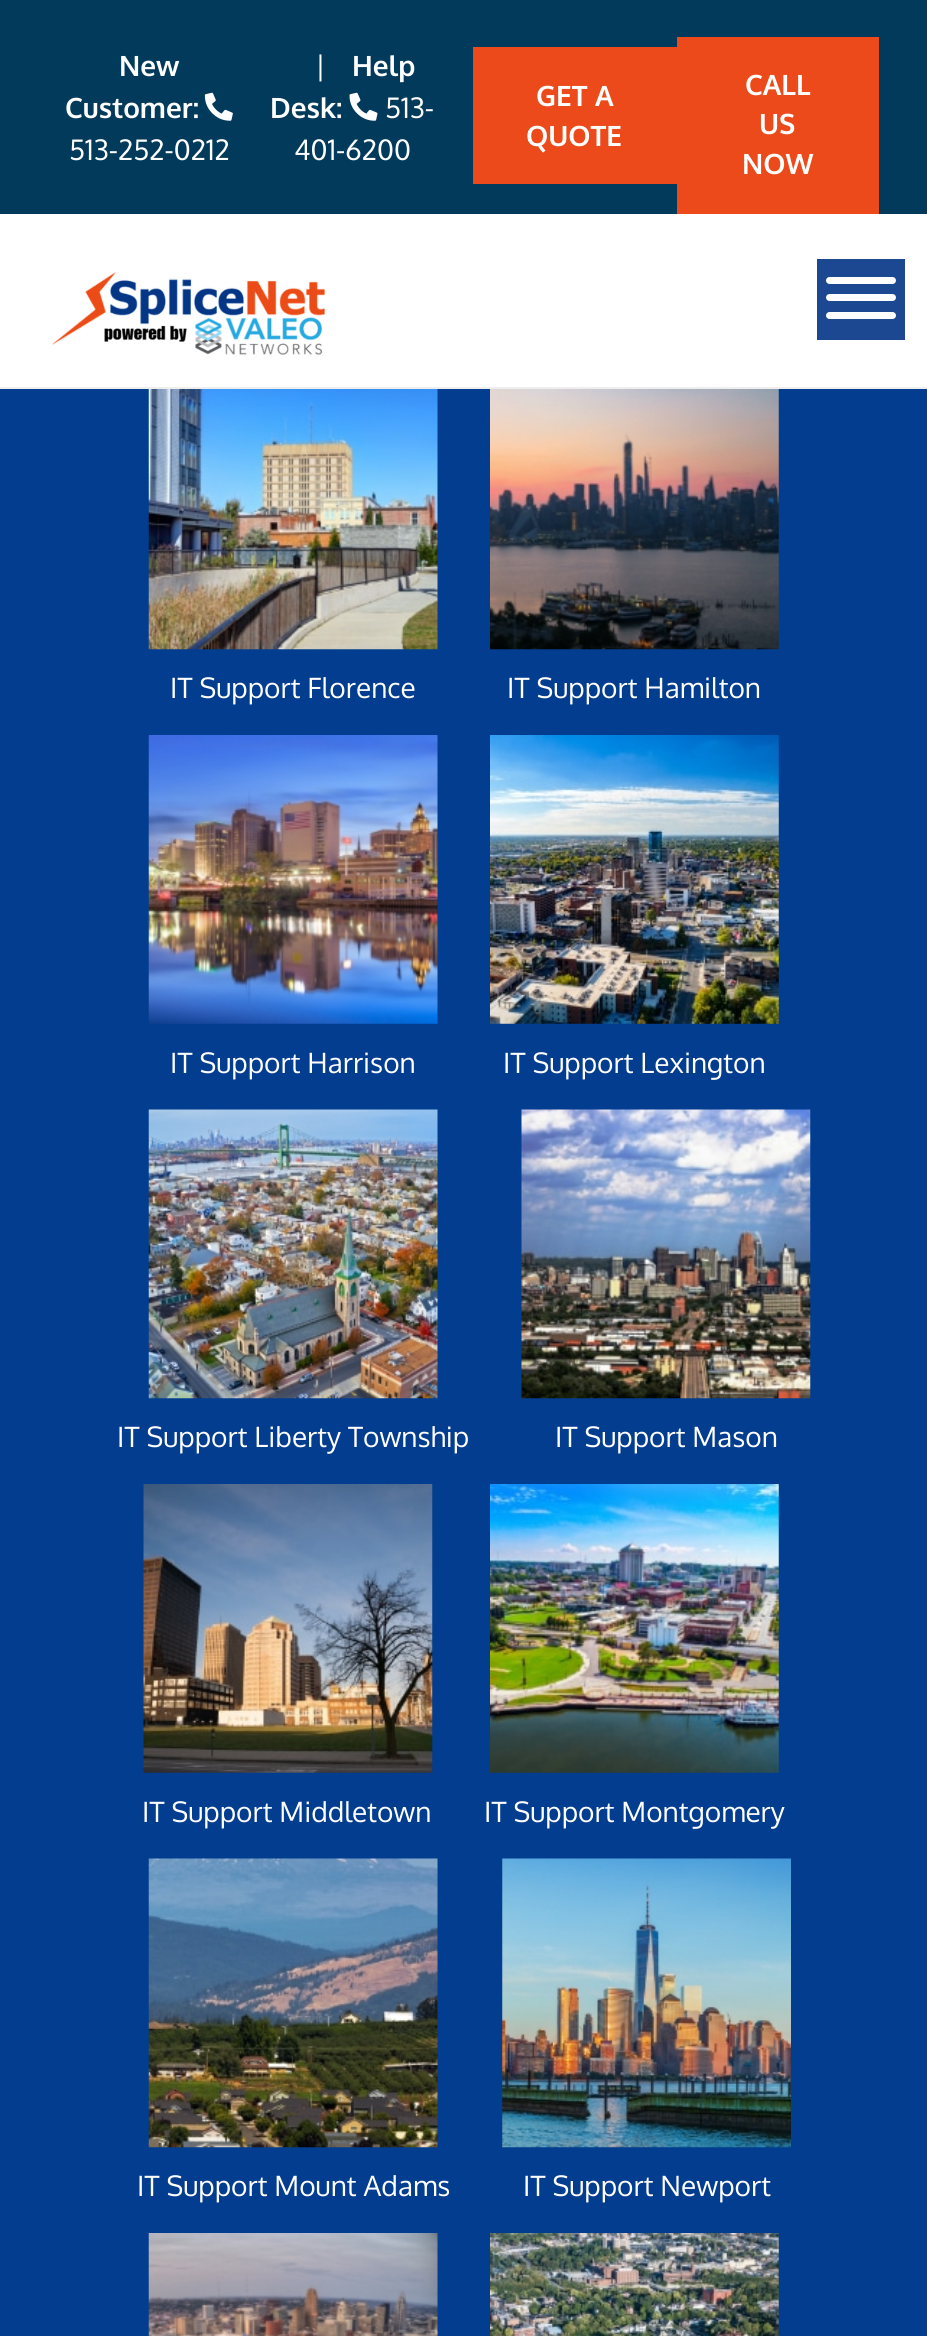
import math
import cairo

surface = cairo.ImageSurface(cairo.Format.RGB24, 927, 2336)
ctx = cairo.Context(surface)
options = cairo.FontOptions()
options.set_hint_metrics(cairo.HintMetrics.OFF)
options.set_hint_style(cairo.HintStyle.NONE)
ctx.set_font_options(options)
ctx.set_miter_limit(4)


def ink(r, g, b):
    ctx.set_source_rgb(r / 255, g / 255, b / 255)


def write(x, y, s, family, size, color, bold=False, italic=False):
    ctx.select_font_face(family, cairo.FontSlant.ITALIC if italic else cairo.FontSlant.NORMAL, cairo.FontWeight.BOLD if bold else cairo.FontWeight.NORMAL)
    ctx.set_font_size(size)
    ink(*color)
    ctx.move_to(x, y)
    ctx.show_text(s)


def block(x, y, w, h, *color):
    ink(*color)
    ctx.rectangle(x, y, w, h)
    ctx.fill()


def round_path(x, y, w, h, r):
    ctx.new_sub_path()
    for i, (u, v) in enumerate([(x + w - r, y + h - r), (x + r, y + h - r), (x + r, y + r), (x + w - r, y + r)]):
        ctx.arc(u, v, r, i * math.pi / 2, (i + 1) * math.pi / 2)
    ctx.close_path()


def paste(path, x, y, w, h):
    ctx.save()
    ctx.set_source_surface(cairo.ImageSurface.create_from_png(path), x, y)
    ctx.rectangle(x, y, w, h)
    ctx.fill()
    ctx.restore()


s1 = dict(family="Oxygen", size=28, color=(255, 255, 255), bold=True)
s2 = dict(family="Oxygen", size=28, color=(255, 255, 255))

ink(3, 61, 143)
ctx.paint()
block(0, 0, 927, 214, 2, 58, 91)
write(119, 76, "New", **s1)
write(65, 118, "Customer:", **s1)
paste("pic1.png", 204, 92, 29, 29)
write(69, 160, "513-252-0212", **s2)
write(315, 76, "|", **s2)
write(352, 76, "Help", **s1)
write(270, 118, "Desk:", **s1)
paste("pic2.png", 349, 92, 29, 29)
write(385, 118, "513-", **s2)
write(294, 160, "401-6200", **s2)
block(473, 47, 204, 137, 236, 74, 26)
write(536, 106, "GET A", **s1)
write(526, 146, "QUOTE", **s1)
block(677, 37, 202, 177, 236, 74, 26)
write(745, 95, "CALL", **s1)
write(759, 134, "US", **s1)
write(742, 174, "NOW", **s1)
block(0, 214, 927, 173, 255, 255, 255)
block(0, 387, 927, 2, 238, 238, 238)
paste("pic3.png", 52, 272, 273, 83)
block(817, 259, 88, 81, 28, 72, 146)
ink(255, 255, 255)
round_path(826, 312, 70, 7, 3.5)
ctx.fill()
round_path(826, 277, 70, 7, 3.5)
ctx.fill()
round_path(826, 294, 70, 7, 3.5)
ctx.fill()
paste("pic4.png", 148, 389, 290, 261)
write(170, 698, "IT Support Florence", **s2)
paste("pic5.png", 490, 389, 289, 261)
write(507, 698, "IT Support Hamilton", **s2)
paste("pic6.png", 148, 735, 290, 289)
write(170, 1073, "IT Support Harrison", **s2)
paste("pic7.png", 490, 735, 289, 289)
write(503, 1073, "IT Support Lexington", **s2)
paste("pic8.png", 148, 1109, 290, 290)
write(117, 1447, "IT Support Liberty Township", **s2)
paste("pic9.png", 521, 1109, 290, 290)
write(555, 1447, "IT Support Mason", **s2)
paste("pic10.png", 143, 1484, 290, 289)
write(142, 1822, "IT Support Middletown", **s2)
paste("pic11.png", 490, 1484, 289, 289)
write(484, 1822, "IT Support Montgomery", **s2)
paste("pic12.png", 148, 1858, 290, 290)
write(137, 2196, "IT Support Mount Adams", **s2)
paste("pic13.png", 502, 1858, 289, 290)
write(523, 2196, "IT Support Newport", **s2)
paste("pic14.png", 148, 2233, 290, 103)
paste("pic15.png", 490, 2233, 289, 103)
surface.write_to_png("screenshot.png")
